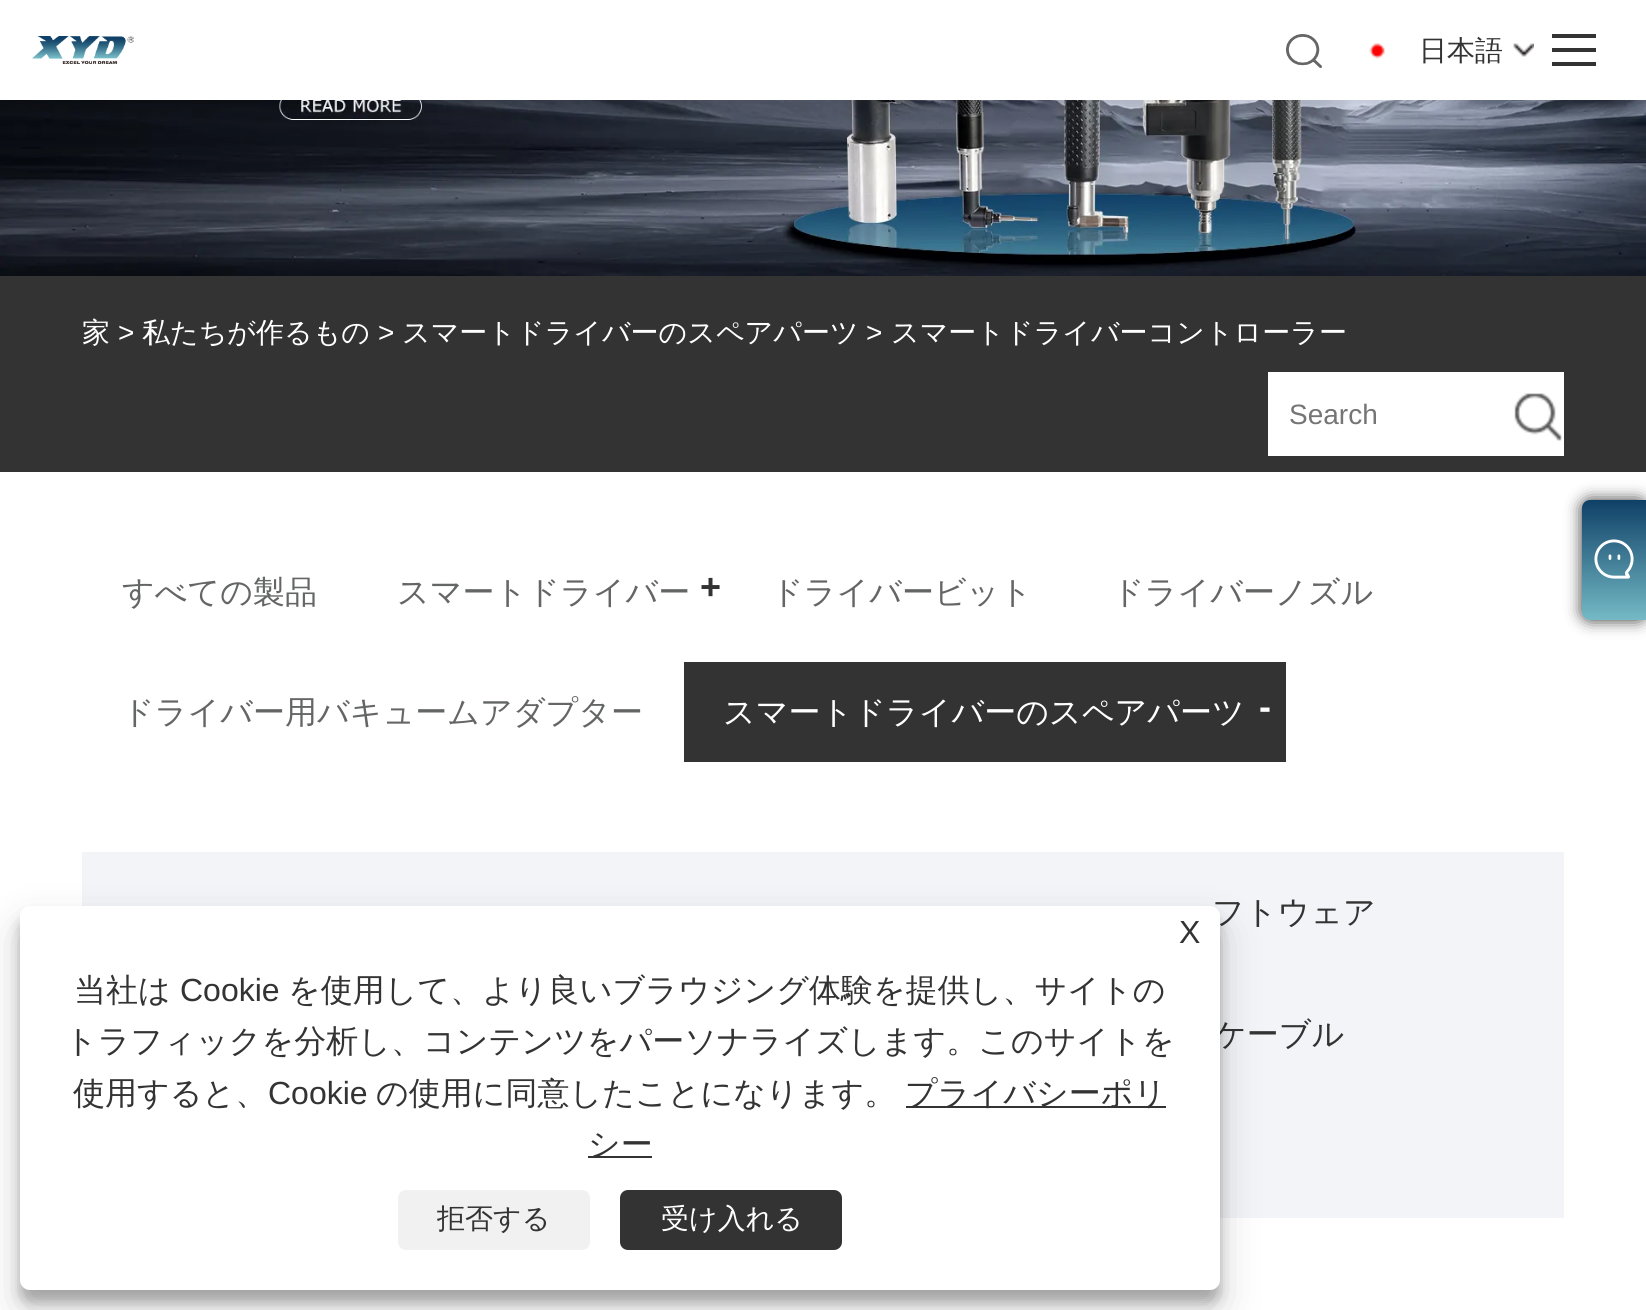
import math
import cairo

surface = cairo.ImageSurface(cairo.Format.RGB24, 1646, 1310)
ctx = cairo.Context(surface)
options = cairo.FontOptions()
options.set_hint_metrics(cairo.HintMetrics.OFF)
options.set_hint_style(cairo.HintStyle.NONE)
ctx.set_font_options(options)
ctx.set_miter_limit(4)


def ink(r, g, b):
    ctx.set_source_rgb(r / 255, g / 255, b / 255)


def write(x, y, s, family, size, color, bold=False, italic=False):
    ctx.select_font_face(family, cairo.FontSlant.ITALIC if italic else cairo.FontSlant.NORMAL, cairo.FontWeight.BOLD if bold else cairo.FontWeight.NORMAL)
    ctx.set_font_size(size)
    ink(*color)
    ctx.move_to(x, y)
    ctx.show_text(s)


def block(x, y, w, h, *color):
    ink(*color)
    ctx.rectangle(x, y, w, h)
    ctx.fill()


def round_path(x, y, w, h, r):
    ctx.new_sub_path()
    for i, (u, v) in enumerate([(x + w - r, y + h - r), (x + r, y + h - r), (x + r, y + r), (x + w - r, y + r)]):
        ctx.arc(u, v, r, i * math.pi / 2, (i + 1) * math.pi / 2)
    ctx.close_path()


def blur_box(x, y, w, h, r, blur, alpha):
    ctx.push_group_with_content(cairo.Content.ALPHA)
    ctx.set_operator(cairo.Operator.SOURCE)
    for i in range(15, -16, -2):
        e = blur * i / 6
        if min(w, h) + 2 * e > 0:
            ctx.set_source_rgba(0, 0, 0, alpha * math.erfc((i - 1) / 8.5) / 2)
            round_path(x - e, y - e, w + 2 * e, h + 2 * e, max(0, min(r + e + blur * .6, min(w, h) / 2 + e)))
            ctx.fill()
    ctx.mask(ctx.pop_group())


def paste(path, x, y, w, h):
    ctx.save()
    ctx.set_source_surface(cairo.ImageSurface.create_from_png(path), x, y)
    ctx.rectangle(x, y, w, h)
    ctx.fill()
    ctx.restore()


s1 = dict(family="WenQuanYi Zen Hei Medium", size=28, color=(51, 51, 51))
s2 = dict(family="WenQuanYi Zen Hei Medium", size=28, color=(255, 255, 255))
s3 = dict(family="Liberation Sans", size=28, color=(255, 255, 255))
s4 = dict(family="Liberation Sans", size=28, color=(117, 117, 117))
s5 = dict(family="WenQuanYi Zen Hei Medium", size=32, color=(100, 101, 101))
s6 = dict(family="Liberation Sans", size=36, color=(51, 51, 51), bold=True)
s7 = dict(family="WenQuanYi Zen Hei Medium", size=32, color=(255, 255, 255))
s8 = dict(family="Liberation Sans", size=36, color=(255, 255, 255), bold=True)
s9 = dict(family="WenQuanYi Zen Hei Medium", size=32, color=(51, 51, 51))
s10 = dict(family="Liberation Sans", size=32, color=(51, 51, 51))

ink(255, 255, 255)
ctx.paint()
paste("pic5.png", 0, 100, 1646, 176)
ink(0, 0, 0)
blur_box(0, 2, 1646, 100, 0, 12, 0.1)
block(0, 0, 1646, 100, 255, 255, 255)
paste("pic1.png", 32, 36, 102, 28)
paste("pic2.png", 1286, 34, 36, 34)
paste("pic3.png", 1513, 43, 21, 14)
paste("pic4.png", 1369, 43, 16, 16)
write(1419, 60, "日本語", **s1)
block(1552, 34, 44, 4, 51, 51, 51)
block(1552, 48, 44, 4, 51, 51, 51)
block(1552, 62, 44, 4, 51, 51, 51)
block(0, 276, 1646, 196, 51, 51, 51)
write(82, 342, "家", **s2)
write(118, 342, ">", **s3)
write(142, 342, "私たちが作るもの", **s2)
write(378, 342, ">", **s3)
write(402, 342, "スマートドライバーのスペアパーツ", **s2)
write(866, 342, ">", **s3)
write(891, 342, "スマートドライバーコントローラー", **s2)
block(1268, 372, 296, 84, 255, 255, 255)
write(1289, 424, "Search", **s4)
paste("pic6.png", 1514, 393, 48, 48)
write(122, 603, "すべての製品", **s5)
write(397, 603, "スマートドライバー", **s5)
write(700, 599, "+", **s6)
write(771, 603, "ドライバービット", **s5)
write(1112, 603, "ドライバーノズル", **s5)
write(122, 723, "ドライバー用バキュームアダプター", **s5)
block(684, 662, 602, 100, 51, 51, 51)
write(723, 723, "スマートドライバーのスペアパーツ", **s7)
write(1259, 719, "-", **s8)
block(82, 852, 1482, 366, 243, 244, 248)
write(1212, 923, "フトウェア", **s9)
write(1214, 1045, "ケーブル", **s9)
ink(51, 51, 51)
blur_box(1582, 500, 64, 120, 8, 8, 1)
gradient = cairo.LinearGradient(1614, 500, 1614, 620)
gradient.add_color_stop_rgba(0, 0.059, 0.251, 0.404, 1)
gradient.add_color_stop_rgba(1, 0.455, 0.729, 0.773, 1)
ctx.set_source(gradient)
ctx.new_path()
ctx.move_to(1590, 500)
ctx.line_to(1646, 500)
ctx.line_to(1646, 620)
ctx.line_to(1590, 620)
ctx.curve_to(1585.5, 620, 1582, 616.5, 1582, 612)
ctx.line_to(1582, 508)
ctx.curve_to(1582, 503.5, 1585.5, 500, 1590, 500)
ctx.close_path()
ctx.fill()
paste("pic7.png", 1594, 539, 40, 40)
ink(0, 0, 0)
blur_box(20, 918, 1200, 384, 10, 6, 0.23)
blur_box(20, 926, 1200, 384, 10, 20, 0.19)
ink(255, 255, 255)
round_path(20, 906, 1200, 384, 10)
ctx.fill()
write(1179, 943, "X", **s10)
write(74, 1001, "当社は", **s9)
write(180, 1001, "Cookie", **s10)
write(288, 1001, "を使用して、より良いブラウジング体験を提供し、サイトの", **s9)
write(65, 1052, "トラフィックを分析し、コンテンツをパーソナライズします。このサイトを", **s9)
write(73, 1104, "使用すると、", **s9)
write(268, 1104, "Cookie", **s10)
write(376, 1104, "の使用に同意したことになります。", **s9)
block(906, 1106, 260, 2, 51, 51, 51)
write(905, 1104, "プライバシーポリ", **s9)
block(588, 1156, 64, 2, 51, 51, 51)
write(588, 1155, "シー", **s9)
ink(241, 241, 241)
round_path(398, 1190, 192, 60, 8)
ctx.fill()
write(437, 1228, "拒否する", **s1)
round_path(620, 1190, 222, 60, 8)
ctx.fill()
write(661, 1228, "受け入れる", **s2)
surface.write_to_png("screenshot.png")
